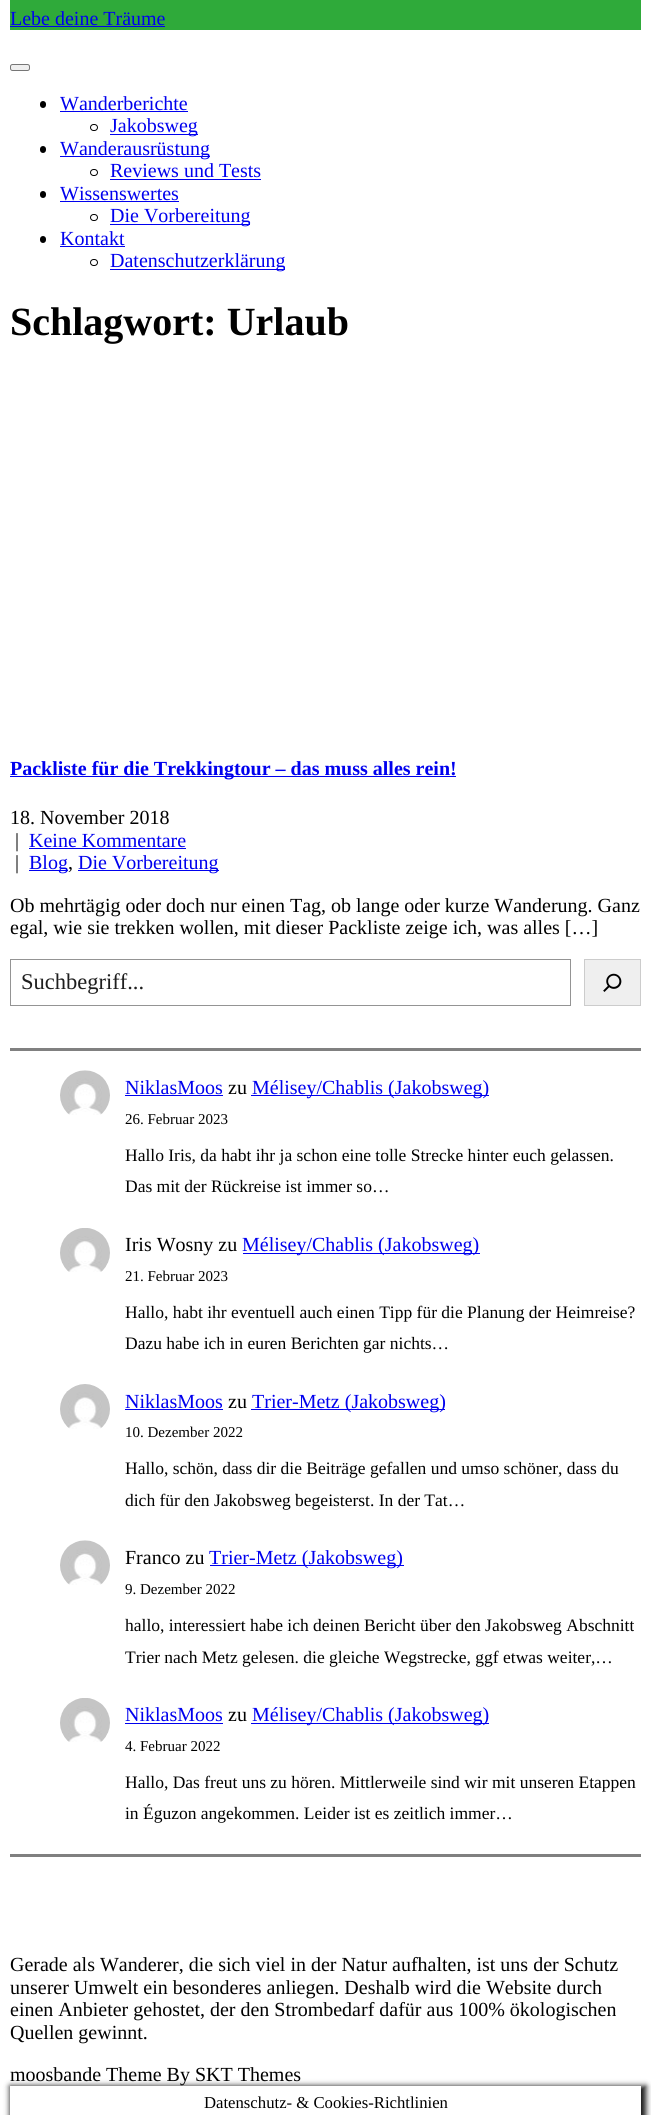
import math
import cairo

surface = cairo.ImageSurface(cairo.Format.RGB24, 651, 2115)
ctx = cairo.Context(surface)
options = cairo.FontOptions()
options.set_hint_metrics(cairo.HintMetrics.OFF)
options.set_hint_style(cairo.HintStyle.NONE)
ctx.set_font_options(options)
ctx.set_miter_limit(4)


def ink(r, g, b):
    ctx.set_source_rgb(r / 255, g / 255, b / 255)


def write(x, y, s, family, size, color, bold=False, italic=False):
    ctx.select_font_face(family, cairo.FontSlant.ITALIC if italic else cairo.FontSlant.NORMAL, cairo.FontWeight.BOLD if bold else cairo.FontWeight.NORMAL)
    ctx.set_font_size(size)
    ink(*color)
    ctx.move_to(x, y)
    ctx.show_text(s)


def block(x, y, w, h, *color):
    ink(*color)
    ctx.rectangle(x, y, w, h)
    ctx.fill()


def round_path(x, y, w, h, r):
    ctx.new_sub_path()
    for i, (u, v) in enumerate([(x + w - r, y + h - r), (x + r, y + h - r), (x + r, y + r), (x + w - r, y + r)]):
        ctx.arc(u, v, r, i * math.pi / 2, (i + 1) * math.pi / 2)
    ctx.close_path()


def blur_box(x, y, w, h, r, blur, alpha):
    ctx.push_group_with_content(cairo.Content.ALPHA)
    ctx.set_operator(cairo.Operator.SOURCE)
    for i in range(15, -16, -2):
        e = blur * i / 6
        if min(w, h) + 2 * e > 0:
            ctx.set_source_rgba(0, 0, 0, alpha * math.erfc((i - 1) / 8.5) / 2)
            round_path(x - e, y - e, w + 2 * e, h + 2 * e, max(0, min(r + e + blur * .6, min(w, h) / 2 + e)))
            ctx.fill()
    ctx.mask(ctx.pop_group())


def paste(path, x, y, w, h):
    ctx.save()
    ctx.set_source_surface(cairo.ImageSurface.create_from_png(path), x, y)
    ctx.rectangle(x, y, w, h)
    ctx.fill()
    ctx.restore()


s1 = dict(family="Liberation Serif", size=20, color=(0, 0, 238))
s2 = dict(family="Liberation Serif", size=40, color=(0, 0, 0), bold=True)
s3 = dict(family="Liberation Serif", size=20, color=(0, 0, 238), bold=True)
s4 = dict(family="Liberation Serif", size=20, color=(0, 0, 0))
s5 = dict(family="Liberation Serif", size=22.5, color=(30, 30, 30))
s6 = dict(family="Liberation Serif", size=15, color=(0, 0, 0))
s7 = dict(family="Liberation Serif", size=17.5, color=(0, 0, 0))
s8 = dict(family="Liberation Serif", size=16.7, color=(0, 0, 0))

ink(255, 255, 255)
ctx.paint()
block(10, 0, 631, 30, 47, 170, 58)
write(10, 25, "Lebe deine Träume", **s1)
block(10, 26, 155, 1, 0, 0, 238)
ink(239, 239, 239)
round_path(10.5, 64.5, 19, 6, 2)
ctx.fill_preserve()
ink(118, 118, 118)
ctx.set_line_width(1)
ctx.stroke()
ink(0, 0, 0)
round_path(40, 101, 6, 7, 3)
ctx.fill()
write(60, 110, "Wanderberichte", **s1)
block(60, 111, 128, 1, 0, 0, 238)
round_path(90.5, 124.5, 7, 6, 3)
ink(0, 0, 0)
ctx.stroke()
block(110, 134, 88, 1, 0, 0, 238)
write(110, 132, "Jakobsweg", **s1)
ink(0, 0, 0)
round_path(40, 146, 6, 7, 3)
ctx.fill()
block(60, 156, 150, 1, 0, 0, 238)
write(60, 155, "Wanderausrüstung", **s1)
round_path(90.5, 169.5, 7, 6, 3)
ink(0, 0, 0)
ctx.stroke()
write(110, 177, "Reviews und Tests", **s1)
block(110, 179, 151, 1, 0, 0, 238)
ink(0, 0, 0)
round_path(40, 191, 6, 7, 3)
ctx.fill()
write(60, 200, "Wissenswertes", **s1)
block(60, 201, 119, 1, 0, 0, 238)
round_path(90.5, 214.5, 7, 6, 3)
ink(0, 0, 0)
ctx.stroke()
block(110, 224, 140, 1, 0, 0, 238)
write(110, 222, "Die Vorbereitung", **s1)
ink(0, 0, 0)
round_path(40, 236, 6, 7, 3)
ctx.fill()
write(60, 245, "Kontakt", **s1)
block(60, 246, 65, 1, 0, 0, 238)
round_path(90.5, 259.5, 7, 6, 3)
ink(0, 0, 0)
ctx.stroke()
block(110, 269, 175, 1, 0, 0, 238)
write(110, 267, "Datenschutzerklärung", **s1)
write(10, 335, "Schlagwort: Urlaub", **s2)
block(10, 776, 446, 1, 0, 0, 238)
write(10, 775, "Packliste für die Trekkingtour – das muss alles rein!", **s3)
write(10, 824, "18. November 2018", **s4)
write(15, 847, "|", **s4)
write(29, 847, "Keine Kommentare", **s1)
block(29, 848, 157, 1, 0, 0, 238)
write(15, 869, "|", **s4)
block(29, 870, 39, 1, 0, 0, 238)
write(29, 869, "Blog", **s1)
write(68, 869, ",", **s4)
block(78, 870, 141, 1, 0, 0, 238)
write(78, 869, "Die Vorbereitung", **s1)
write(10, 912, "Ob mehrtägig oder doch nur einen Tag, ob lange oder kurze Wanderung. Ganz", **s4)
write(10, 934, "egal, wie sie trekken wollen, mit dieser Packliste zeige ich, was alles […]", **s4)
ctx.rectangle(10.5, 959.5, 560, 46)
ink(148, 148, 148)
ctx.stroke()
write(21, 989, "Suchbegriff...", **s5)
ink(239, 239, 239)
ctx.rectangle(584.5, 959.5, 56, 46)
ctx.fill_preserve()
ink(204, 204, 204)
ctx.stroke()
paste("pic1.png", 603, 973, 19, 19)
block(10, 1048, 631, 3, 128, 128, 128)
paste("pic2.png", 60, 1070, 50, 45)
write(125, 1094, "NiklasMoos", **s1)
block(125, 1095, 98, 1, 0, 0, 238)
write(228, 1094, "zu", **s4)
block(251, 1095, 238, 1, 0, 0, 238)
write(252, 1094, "Mélisey/Chablis (Jakobsweg)", **s1)
write(125, 1124, "26. Februar 2023", **s6)
write(125, 1161, "Hallo Iris, da habt ihr ja schon eine tolle Strecke hinter euch gelassen.", **s7)
write(125, 1192, "Das mit der Rückreise ist immer so…", **s7)
paste("pic3.png", 60, 1228, 50, 44)
write(125, 1251, "Iris Wosny zu", **s4)
block(243, 1253, 237, 1, 0, 0, 238)
write(242, 1251, "Mélisey/Chablis (Jakobsweg)", **s1)
write(125, 1281, "21. Februar 2023", **s6)
write(125, 1318, "Hallo, habt ihr eventuell auch einen Tipp für die Planung der Heimreise?", **s7)
write(125, 1349, "Dazu habe ich in euren Berichten gar nichts…", **s7)
paste("pic4.png", 60, 1384, 50, 45)
write(125, 1408, "NiklasMoos", **s1)
block(125, 1409, 98, 1, 0, 0, 238)
write(228, 1408, "zu", **s4)
block(251, 1409, 194, 1, 0, 0, 238)
write(252, 1408, "Trier-Metz (Jakobsweg)", **s1)
write(125, 1437, "10. Dezember 2022", **s6)
write(125, 1474, "Hallo, schön, dass dir die Beiträge gefallen und umso schöner, dass du", **s7)
write(125, 1506, "dich für den Jakobsweg begeisterst. In der Tat…", **s7)
paste("pic2.png", 60, 1540, 50, 45)
write(125, 1564, "Franco zu", **s4)
block(210, 1565, 194, 1, 0, 0, 238)
write(209, 1564, "Trier-Metz (Jakobsweg)", **s1)
write(125, 1594, "9. Dezember 2022", **s6)
write(125, 1631, "hallo, interessiert habe ich deinen Bericht über den Jakobsweg Abschnitt", **s7)
write(125, 1663, "Trier nach Metz gelesen. die gleiche Wegstrecke, ggf etwas weiter,…", **s7)
paste("pic5.png", 60, 1698, 50, 44)
write(125, 1721, "NiklasMoos", **s1)
block(125, 1723, 98, 1, 0, 0, 238)
write(228, 1721, "zu", **s4)
block(251, 1723, 238, 1, 0, 0, 238)
write(252, 1721, "Mélisey/Chablis (Jakobsweg)", **s1)
write(125, 1751, "4. Februar 2022", **s6)
write(125, 1788, "Hallo, Das freut uns zu hören. Mittlerweile sind wir mit unseren Etappen", **s7)
write(125, 1819, "in Éguzon angekommen. Leider ist es zeitlich immer…", **s7)
block(10, 1854, 631, 3, 128, 128, 128)
write(10, 1971, "Gerade als Wanderer, die sich viel in der Natur aufhalten, ist uns der Schutz", **s4)
write(10, 1994, "unserer Umwelt ein besonderes anliegen. Deshalb wird die Website durch", **s4)
write(10, 2016, "einen Anbieter gehostet, der den Strombedarf dafür aus 100% ökologischen", **s4)
write(10, 2039, "Quellen gewinnt.", **s4)
ctx.save()
ctx.set_fill_rule(cairo.FillRule.EVEN_ODD)
ctx.new_path()
ctx.move_to(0, 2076)
ctx.line_to(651, 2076)
ctx.line_to(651, 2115)
ctx.line_to(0, 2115)
ctx.close_path()
ctx.move_to(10, 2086)
ctx.line_to(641, 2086)
ctx.line_to(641, 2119)
ctx.line_to(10, 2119)
ctx.close_path()
ctx.clip()
ink(22, 22, 22)
blur_box(10, 2086, 636, 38, 0, 3, 1)
ctx.restore()
write(10, 2081, "moosbande Theme By SKT Themes", **s4)
write(204, 2108, "Datenschutz- & Cookies-Richtlinien", **s8)
surface.write_to_png("screenshot.png")
